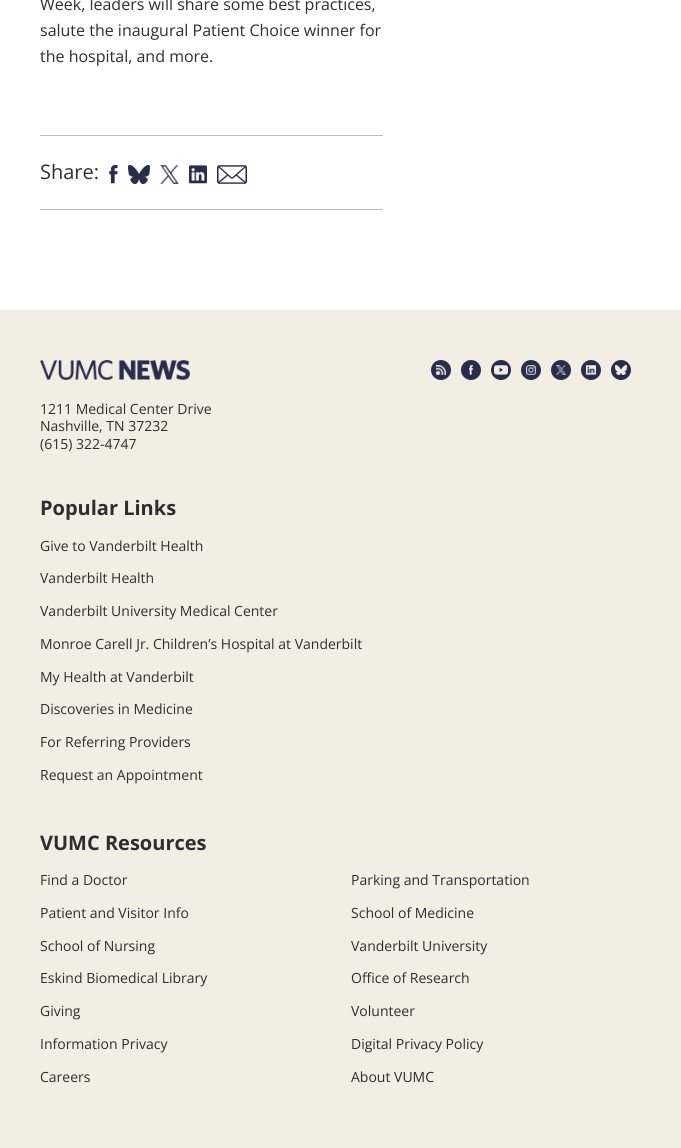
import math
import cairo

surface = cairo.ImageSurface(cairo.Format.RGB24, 681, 1148)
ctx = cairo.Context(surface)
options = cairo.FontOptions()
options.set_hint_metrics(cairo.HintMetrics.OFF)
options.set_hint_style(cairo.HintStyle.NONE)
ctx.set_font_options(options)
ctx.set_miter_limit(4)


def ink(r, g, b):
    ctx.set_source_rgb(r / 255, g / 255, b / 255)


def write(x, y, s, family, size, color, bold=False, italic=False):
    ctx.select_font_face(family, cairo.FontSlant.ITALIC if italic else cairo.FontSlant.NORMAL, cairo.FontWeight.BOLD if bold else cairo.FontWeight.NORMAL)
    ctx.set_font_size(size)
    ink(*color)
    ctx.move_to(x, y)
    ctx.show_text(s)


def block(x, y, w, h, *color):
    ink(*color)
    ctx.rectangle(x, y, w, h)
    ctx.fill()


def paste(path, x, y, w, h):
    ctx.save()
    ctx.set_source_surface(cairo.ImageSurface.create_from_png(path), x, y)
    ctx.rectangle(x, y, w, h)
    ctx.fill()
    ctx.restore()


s1 = dict(family="Open Sans", size=16, color=(46, 46, 47))
s2 = dict(family="Open Sans", size=20, color=(46, 46, 47))
s3 = dict(family="Open Sans", size=14, color=(46, 46, 47))
s4 = dict(family="Open Sans", size=20, color=(46, 46, 47), bold=True)

ink(255, 255, 255)
ctx.paint()
write(40, 10, "Week, leaders will share some best practices,", **s1)
write(40, 36, "salute the inaugural Patient Choice winner for", **s1)
write(40, 62, "the hospital, and more.", **s1)
block(40, 135, 343, 1, 191, 189, 190)
block(40, 209, 343, 1, 191, 189, 190)
write(40, 179, "Share:", **s2)
paste("pic1.png", 109, 165, 9, 19)
paste("pic2.png", 128, 165, 22, 19)
paste("pic3.png", 160, 165, 19, 19)
paste("pic4.png", 189, 165, 18, 19)
paste("pic5.png", 217, 165, 30, 19)
block(0, 310, 681, 838, 242, 238, 228)
ink(40, 45, 78)
ctx.arc(441, 370, 10, 0, 2 * math.pi)
ctx.fill()
paste("pic6.png", 436, 365, 10, 10)
ctx.arc(471, 370, 10, 0, 2 * math.pi)
ctx.fill()
paste("pic7.png", 469, 365, 4, 10)
ctx.arc(501, 370, 10, 0, 2 * math.pi)
ctx.fill()
paste("pic8.png", 494, 365, 14, 10)
ctx.arc(531, 370, 10, 0, 2 * math.pi)
ctx.fill()
paste("pic9.png", 526, 365, 10, 10)
ctx.arc(561, 370, 10, 0, 2 * math.pi)
ctx.fill()
paste("pic10.png", 556, 365, 10, 10)
ctx.arc(591, 370, 10, 0, 2 * math.pi)
ctx.fill()
paste("pic11.png", 586, 365, 10, 10)
ctx.arc(621, 370, 10, 0, 2 * math.pi)
ctx.fill()
paste("pic12.png", 615, 365, 12, 10)
paste("pic13.png", 40, 360, 150, 20)
write(40, 414, "1211 Medical Center Drive", **s3)
write(40, 431, "Nashville, TN 37232", **s3)
write(40, 449, "(615) 322-4747", **s3)
write(40, 515, "Popular Links", **s4)
write(40, 551, "Give to Vanderbilt Health", **s3)
write(40, 583, "Vanderbilt Health", **s3)
write(40, 616, "Vanderbilt University Medical Center", **s3)
write(40, 649, "Monroe Carell Jr. Children’s Hospital at Vanderbilt", **s3)
write(40, 682, "My Health at Vanderbilt", **s3)
write(40, 714, "Discoveries in Medicine", **s3)
write(40, 747, "For Referring Providers", **s3)
write(40, 780, "Request an Appointment", **s3)
write(40, 850, "VUMC Resources", **s4)
write(40, 885, "Find a Doctor", **s3)
write(351, 885, "Parking and Transportation", **s3)
write(40, 918, "Patient and Visitor Info", **s3)
write(351, 918, "School of Medicine", **s3)
write(40, 951, "School of Nursing", **s3)
write(351, 951, "Vanderbilt University", **s3)
write(40, 983, "Eskind Biomedical Library", **s3)
write(351, 983, "Office of Research", **s3)
write(40, 1016, "Giving", **s3)
write(351, 1016, "Volunteer", **s3)
write(40, 1049, "Information Privacy", **s3)
write(351, 1049, "Digital Privacy Policy", **s3)
write(40, 1082, "Careers", **s3)
write(351, 1082, "About VUMC", **s3)
surface.write_to_png("screenshot.png")
